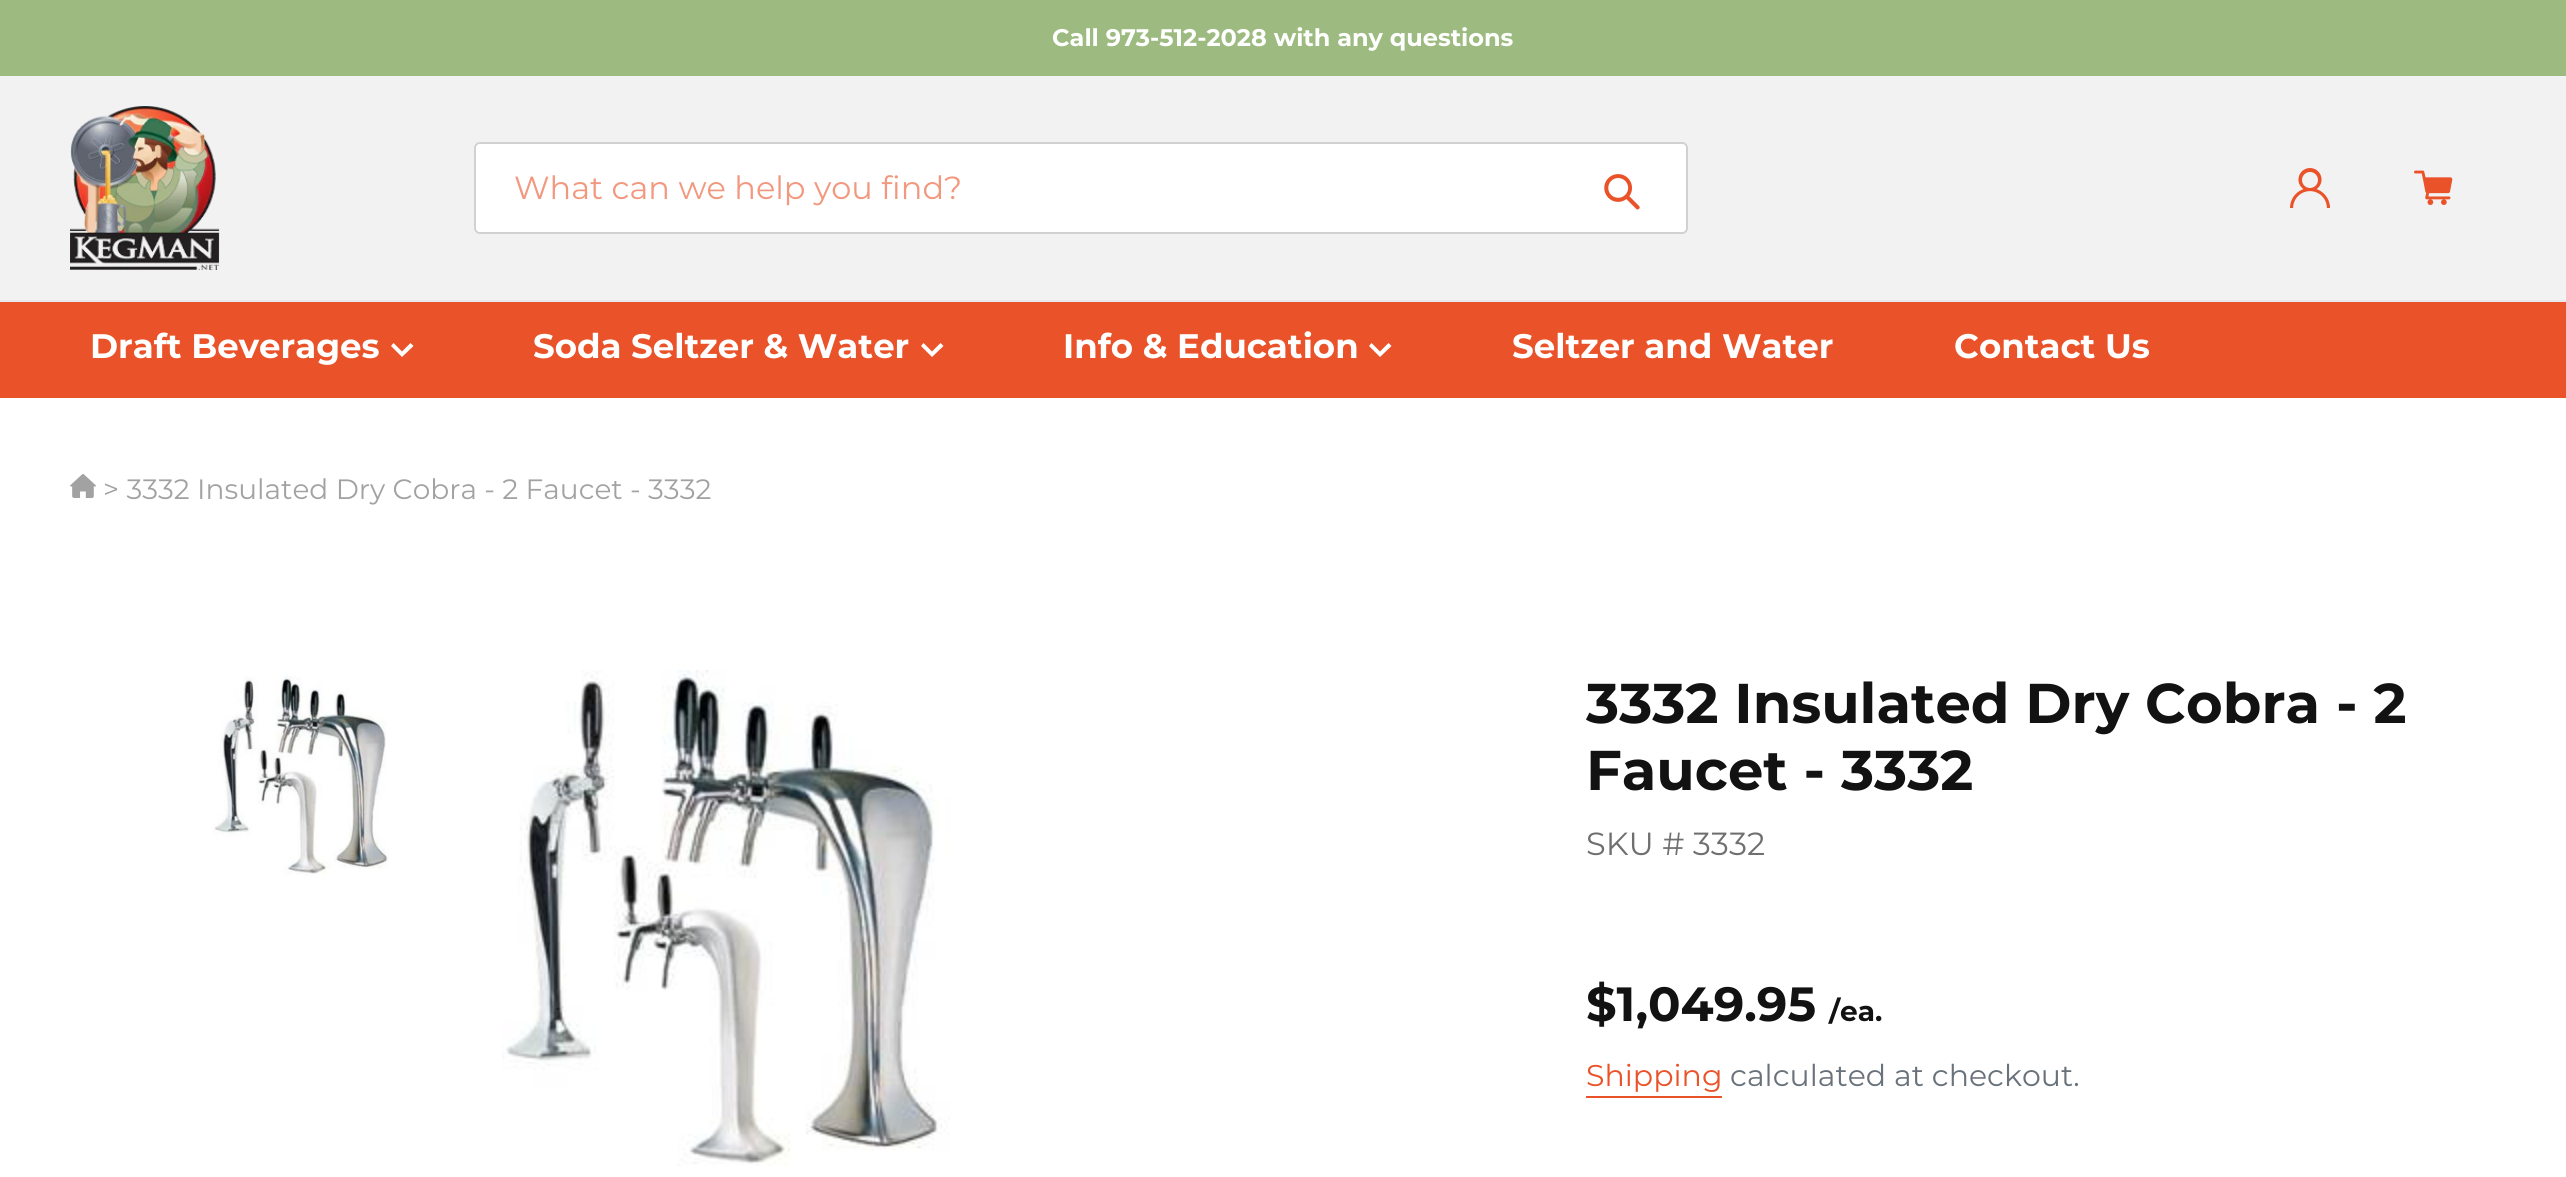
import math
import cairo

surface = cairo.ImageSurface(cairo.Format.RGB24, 2566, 1177)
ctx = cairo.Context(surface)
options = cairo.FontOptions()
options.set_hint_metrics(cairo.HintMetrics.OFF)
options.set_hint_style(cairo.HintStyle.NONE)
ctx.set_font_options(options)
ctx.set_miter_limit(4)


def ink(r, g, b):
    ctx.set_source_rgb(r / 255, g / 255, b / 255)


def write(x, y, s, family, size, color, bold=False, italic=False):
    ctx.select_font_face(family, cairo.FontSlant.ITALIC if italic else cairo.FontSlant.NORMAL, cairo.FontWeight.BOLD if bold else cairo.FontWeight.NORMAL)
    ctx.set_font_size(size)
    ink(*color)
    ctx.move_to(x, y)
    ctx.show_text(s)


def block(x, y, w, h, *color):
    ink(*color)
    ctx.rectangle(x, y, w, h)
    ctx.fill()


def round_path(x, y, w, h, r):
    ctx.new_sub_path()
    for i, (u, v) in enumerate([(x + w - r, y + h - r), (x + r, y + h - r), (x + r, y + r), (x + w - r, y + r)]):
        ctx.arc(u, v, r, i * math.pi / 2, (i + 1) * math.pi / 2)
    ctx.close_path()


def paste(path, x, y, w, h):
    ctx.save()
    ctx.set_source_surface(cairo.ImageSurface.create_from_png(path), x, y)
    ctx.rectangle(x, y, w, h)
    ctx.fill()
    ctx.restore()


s1 = dict(family="Montserrat", size=24, color=(255, 255, 255), bold=True)
s2 = dict(family="Montserrat", size=32, color=(242, 152, 127))
s3 = dict(family="Montserrat", size=34, color=(255, 255, 255), bold=True)
s4 = dict(family="Montserrat", size=28, color=(162, 162, 162))
s5 = dict(family="Montserrat", size=56, color=(18, 18, 18), bold=True)
s6 = dict(family="Montserrat", size=32, color=(111, 111, 111))
s7 = dict(family="Montserrat", size=48, color=(18, 18, 18), bold=True)
s8 = dict(family="Montserrat", size=28, color=(18, 18, 18), bold=True)
s9 = dict(family="Montserrat", size=30, color=(234, 83, 41))
s10 = dict(family="Montserrat", size=30, color=(105, 114, 123))

ink(242, 242, 242)
ctx.paint()
block(0, 0, 2566, 76, 157, 187, 128)
write(1052, 46, "Call 973-512-2028 with any questions", **s1)
block(0, 300, 2566, 2, 232, 233, 235)
paste("pic1.png", 70, 106, 150, 164)
round_path(475, 143, 1212, 90, 5)
ink(209, 209, 209)
ctx.stroke()
ink(255, 255, 255)
round_path(476, 144, 1210, 88, 4)
ctx.fill()
write(514, 199, "What can we help you find?", **s2)
paste("pic2.png", 1604, 174, 36, 36)
paste("pic3.png", 2290, 168, 40, 40)
paste("pic4.png", 2414, 170, 39, 35)
block(0, 302, 2566, 96, 234, 83, 41)
write(90, 358, "Draft Beverages", **s3)
ctx.set_fill_rule(cairo.FillRule.EVEN_ODD)
ctx.new_path()
ctx.move_to(393.5, 343)
ctx.line_to(391, 346)
ctx.line_to(402, 357)
ctx.line_to(413.5, 346)
ctx.line_to(410.5, 343)
ctx.line_to(402, 351.5)
ctx.close_path()
ctx.fill()
write(533, 358, "Soda Seltzer & Water", **s3)
ctx.new_path()
ctx.move_to(923.5, 343)
ctx.line_to(921, 346)
ctx.line_to(932, 357)
ctx.line_to(943.5, 346)
ctx.line_to(940.5, 343)
ctx.line_to(932, 351.5)
ctx.close_path()
ctx.fill()
write(1063, 358, "Info & Education", **s3)
ctx.new_path()
ctx.move_to(1371.5, 343)
ctx.line_to(1369, 346)
ctx.line_to(1380, 357)
ctx.line_to(1391.5, 346)
ctx.line_to(1388.5, 343)
ctx.line_to(1380, 351.5)
ctx.close_path()
ctx.fill()
write(1512, 358, "Seltzer and Water", **s3)
write(1954, 358, "Contact Us", **s3)
block(0, 398, 2566, 779, 255, 255, 255)
paste("pic5.png", 70, 474, 26, 24)
write(103, 499, "> 3332 Insulated Dry Cobra - 2 Faucet - 3332", **s4)
paste("pic6.png", 213, 676, 176, 200)
paste("pic7.png", 502, 670, 448, 496)
write(1586, 723, "3332 Insulated Dry Cobra - 2", **s5)
write(1586, 790, "Faucet - 3332", **s5)
write(1586, 855, "SKU # 3332", **s6)
write(1586, 1021, "$1,049.95", **s7)
write(1829, 1021, "/ea.", **s8)
write(1586, 1086, "Shipping", **s9)
block(1586, 1096, 136, 2, 234, 83, 41)
write(1730, 1086, "calculated at checkout.", **s10)
surface.write_to_png("screenshot.png")
